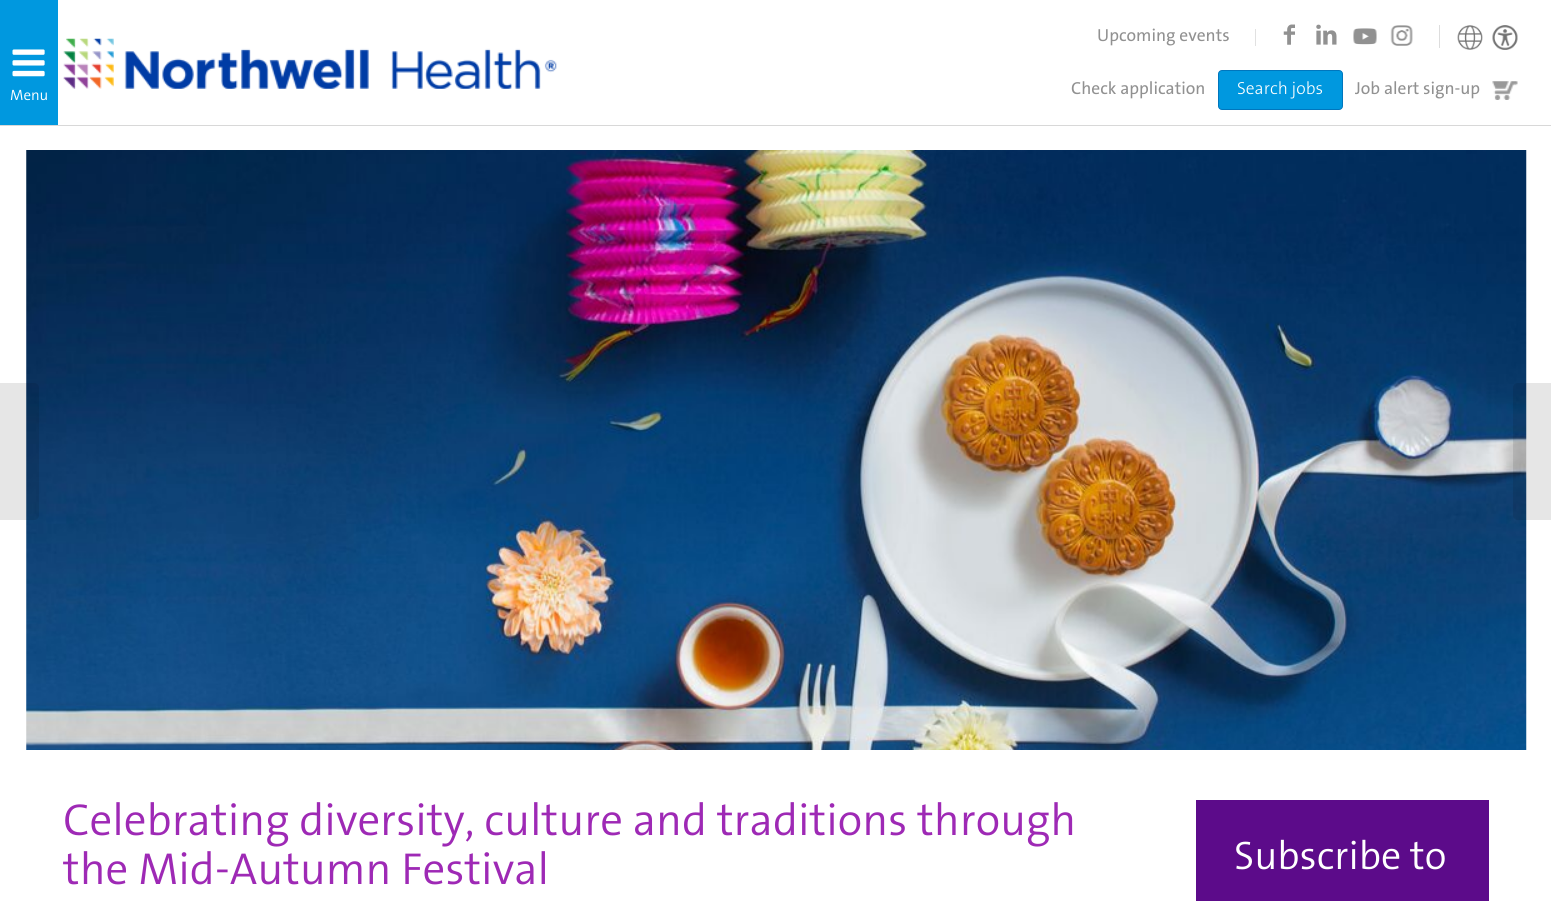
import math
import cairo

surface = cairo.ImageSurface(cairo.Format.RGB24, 1551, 901)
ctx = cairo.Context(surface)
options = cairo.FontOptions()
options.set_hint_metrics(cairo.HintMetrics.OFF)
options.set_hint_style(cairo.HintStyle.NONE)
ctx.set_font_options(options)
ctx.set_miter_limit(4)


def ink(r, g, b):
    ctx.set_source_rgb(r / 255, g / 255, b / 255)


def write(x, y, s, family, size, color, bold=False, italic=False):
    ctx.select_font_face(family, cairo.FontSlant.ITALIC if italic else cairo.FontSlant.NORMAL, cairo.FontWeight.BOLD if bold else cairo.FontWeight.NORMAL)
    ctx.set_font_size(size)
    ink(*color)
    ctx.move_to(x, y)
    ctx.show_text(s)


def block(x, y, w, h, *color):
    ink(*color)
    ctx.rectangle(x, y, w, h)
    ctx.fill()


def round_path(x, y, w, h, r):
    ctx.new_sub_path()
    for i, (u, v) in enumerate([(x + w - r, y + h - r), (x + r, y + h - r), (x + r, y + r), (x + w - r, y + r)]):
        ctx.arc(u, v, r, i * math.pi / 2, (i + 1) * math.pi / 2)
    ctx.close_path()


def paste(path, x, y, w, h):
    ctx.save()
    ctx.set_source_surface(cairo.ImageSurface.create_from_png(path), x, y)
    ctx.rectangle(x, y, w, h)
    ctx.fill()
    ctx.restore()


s1 = dict(family="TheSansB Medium", size=17.5, color=(145, 145, 145))
s2 = dict(family="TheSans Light", size=15, color=(255, 255, 255))
s3 = dict(family="TheSansB Light", size=17.5, color=(255, 255, 255))
s4 = dict(family="TheSans Light", size=45, color=(158, 41, 181))
s5 = dict(family="TheSans Light", size=40, color=(255, 255, 255))

ink(255, 255, 255)
ctx.paint()
paste("pic1.png", 63, 38, 494, 51)
write(1097, 41, "Upcoming events", **s1)
block(1255, 29, 1, 17, 225, 225, 225)
paste("pic2.png", 1283, 24, 12, 21)
paste("pic3.png", 1316, 24, 21, 21)
paste("pic4.png", 1353, 28, 24, 17)
paste("pic5.png", 1390, 25, 23, 21)
block(1439, 25, 1, 23, 221, 221, 221)
paste("pic6.png", 1457, 25, 26, 25)
paste("pic7.png", 1492, 25, 26, 25)
block(0, 0, 58, 125, 0, 152, 223)
paste("pic8.png", 12, 49, 33, 28)
write(10, 100, "Menu", **s2)
write(1071, 94, "Check application", **s1)
ink(0, 152, 223)
round_path(1218.5, 70.5, 124, 39, 3.5)
ctx.fill_preserve()
ink(0, 118, 189)
ctx.set_line_width(1)
ctx.stroke()
write(1237, 94, "Search jobs", **s3)
write(1355, 94, "Job alert sign-up", **s1)
paste("pic9.png", 1492, 81, 26, 19)
block(0, 125, 1551, 1, 216, 216, 216)
paste("pic10.png", 26, 150, 1501, 600)
ctx.set_source_rgba(0, 0, 0, 0.1)
ctx.new_path()
ctx.move_to(0, 383)
ctx.line_to(34, 383)
ctx.curve_to(37, 383, 39, 385, 39, 388)
ctx.line_to(39, 515)
ctx.curve_to(39, 518, 37, 520, 34, 520)
ctx.line_to(0, 520)
ctx.close_path()
ctx.fill()
ctx.new_path()
ctx.move_to(1518, 383)
ctx.line_to(1551, 383)
ctx.line_to(1551, 520)
ctx.line_to(1518, 520)
ctx.curve_to(1515, 520, 1513, 518, 1513, 515)
ctx.line_to(1513, 388)
ctx.curve_to(1513, 385, 1515, 383, 1518, 383)
ctx.close_path()
ctx.fill()
write(63, 835, "Celebrating diversity, culture and traditions through", **s4)
write(63, 884, "the Mid-Autumn Festival", **s4)
block(1196, 800, 293, 101, 92, 11, 138)
write(1234, 869, "Subscribe to", **s5)
surface.write_to_png("screenshot.png")
